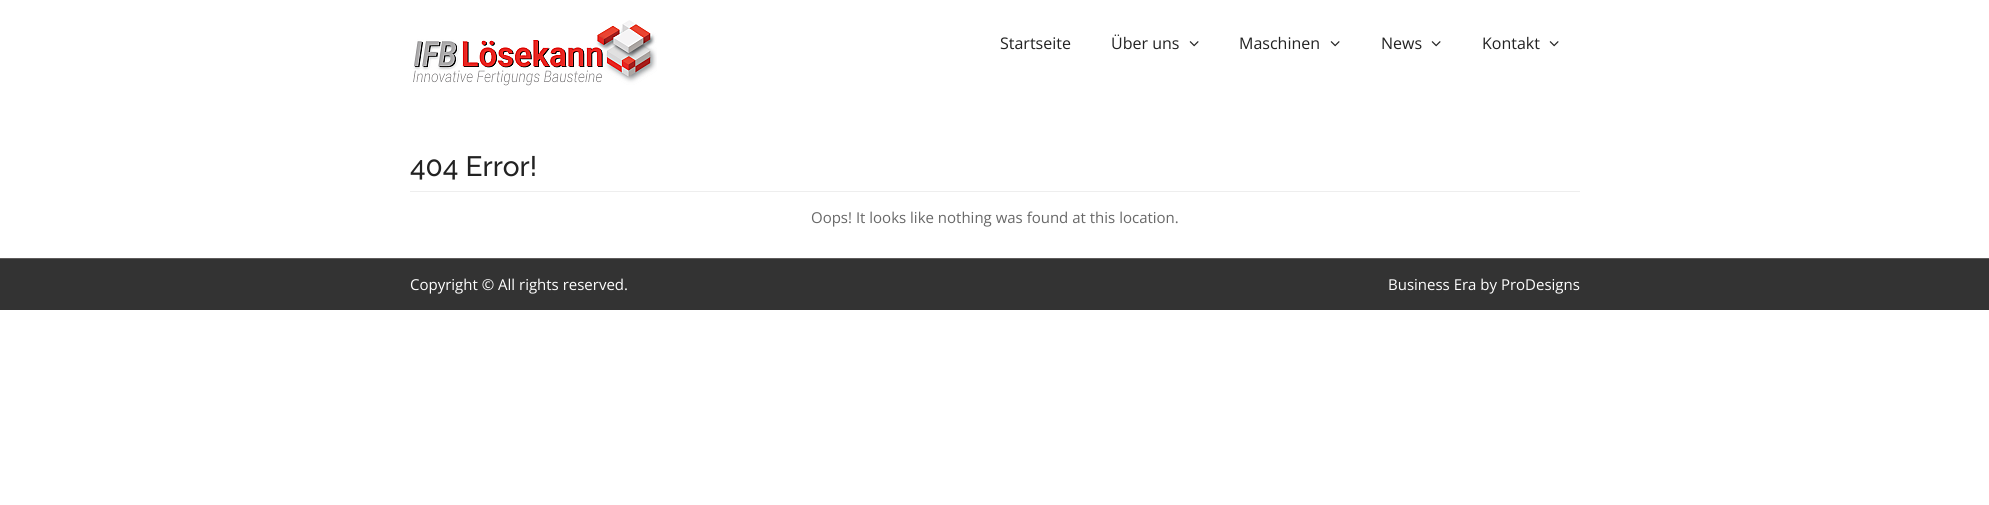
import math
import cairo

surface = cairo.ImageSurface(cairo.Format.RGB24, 1989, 505)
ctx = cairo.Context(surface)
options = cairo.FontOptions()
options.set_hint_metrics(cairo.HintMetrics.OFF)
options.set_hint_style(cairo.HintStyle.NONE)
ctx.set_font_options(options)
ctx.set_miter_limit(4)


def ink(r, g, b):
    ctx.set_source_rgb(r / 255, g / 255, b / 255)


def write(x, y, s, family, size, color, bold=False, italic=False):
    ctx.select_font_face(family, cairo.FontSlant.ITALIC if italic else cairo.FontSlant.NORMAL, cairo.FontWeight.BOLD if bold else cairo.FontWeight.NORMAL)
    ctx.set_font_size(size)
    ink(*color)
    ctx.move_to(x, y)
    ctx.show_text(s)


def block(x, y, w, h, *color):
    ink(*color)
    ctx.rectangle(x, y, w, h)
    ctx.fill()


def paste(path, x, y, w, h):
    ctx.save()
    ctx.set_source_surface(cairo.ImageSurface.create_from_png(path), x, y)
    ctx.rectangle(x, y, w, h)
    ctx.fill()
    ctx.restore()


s1 = dict(family="Open Sans", size=16, color=(34, 34, 34))
s2 = dict(family="Raleway Medium", size=28, color=(34, 34, 34))
s3 = dict(family="Open Sans", size=15, color=(104, 104, 104))
s4 = dict(family="Open Sans", size=15, color=(255, 255, 255))

ink(255, 255, 255)
ctx.paint()
paste("pic1.png", 413, 20, 244, 66)
write(1000, 49, "Startseite", **s1)
write(1111, 49, "Über uns", **s1)
paste("pic2.png", 1189, 41, 10, 6)
write(1239, 49, "Maschinen", **s1)
paste("pic2.png", 1330, 41, 10, 6)
write(1381, 49, "News", **s1)
paste("pic2.png", 1431, 41, 10, 6)
write(1482, 49, "Kontakt", **s1)
paste("pic2.png", 1549, 41, 10, 6)
block(410, 191, 1170, 1, 238, 238, 238)
write(410, 176, "404 Error!", **s2)
write(811, 223, "Oops! It looks like nothing was found at this location.", **s3)
block(0, 259, 1989, 51, 51, 51, 51)
block(0, 258, 1989, 1, 94, 91, 91)
write(410, 290, "Copyright © All rights reserved.", **s4)
write(1388, 290, "Business Era by ProDesigns", **s4)
surface.write_to_png("screenshot.png")
